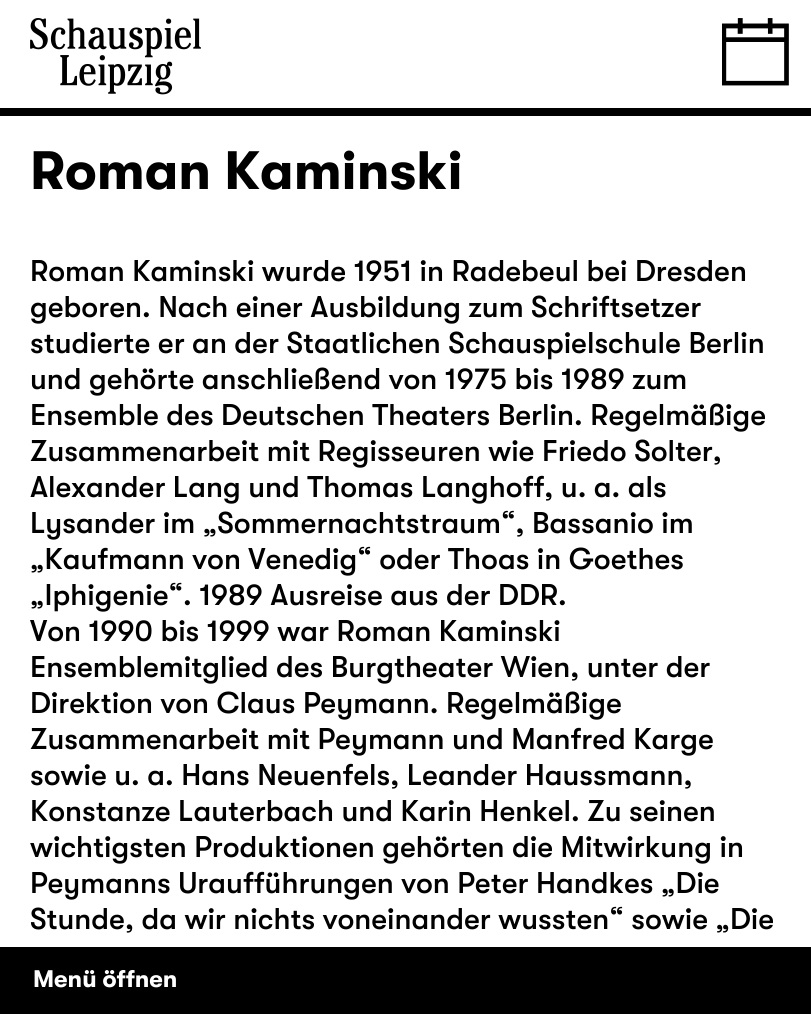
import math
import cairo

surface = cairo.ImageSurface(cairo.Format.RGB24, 811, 1014)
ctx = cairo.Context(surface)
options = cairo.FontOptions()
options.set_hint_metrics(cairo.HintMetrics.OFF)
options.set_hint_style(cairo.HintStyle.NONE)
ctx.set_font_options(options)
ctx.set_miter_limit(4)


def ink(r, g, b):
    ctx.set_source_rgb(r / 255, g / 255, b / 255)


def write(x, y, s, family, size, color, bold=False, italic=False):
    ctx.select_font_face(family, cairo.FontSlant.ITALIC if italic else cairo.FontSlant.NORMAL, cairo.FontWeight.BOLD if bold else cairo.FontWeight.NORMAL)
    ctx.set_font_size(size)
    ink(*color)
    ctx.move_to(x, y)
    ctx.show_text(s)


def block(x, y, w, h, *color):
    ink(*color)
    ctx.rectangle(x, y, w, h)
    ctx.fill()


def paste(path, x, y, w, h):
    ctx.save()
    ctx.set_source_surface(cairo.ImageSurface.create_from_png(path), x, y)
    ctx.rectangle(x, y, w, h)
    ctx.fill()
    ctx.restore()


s1 = dict(family="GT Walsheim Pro", size=54, color=(0, 0, 0), bold=True)
s2 = dict(family="GT Walsheim Pro Medium", size=30, color=(0, 0, 0))
s3 = dict(family="GT Walsheim Pro", size=24, color=(255, 255, 255), bold=True)

ink(255, 255, 255)
ctx.paint()
block(0, 108, 811, 8, 0, 0, 0)
paste("pic1.png", 30, 18, 171, 77)
paste("pic2.png", 722, 18, 67, 68)
write(30, 189, "Roman Kaminski", **s1)
write(30, 281, "Roman Kaminski wurde 1951 in Radebeul bei Dresden", **s2)
write(30, 317, "geboren. Nach einer Ausbildung zum Schriftsetzer", **s2)
write(30, 353, "studierte er an der Staatlichen Schauspielschule Berlin", **s2)
write(30, 389, "und gehörte anschließend von 1975 bis 1989 zum", **s2)
write(30, 425, "Ensemble des Deutschen Theaters Berlin. Regelmäßige", **s2)
write(30, 461, "Zusammenarbeit mit Regisseuren wie Friedo Solter,", **s2)
write(30, 497, "Alexander Lang und Thomas Langhoff, u. a. als", **s2)
write(30, 533, "Lysander im „Sommernachtstraum“, Bassanio im", **s2)
write(30, 569, "„Kaufmann von Venedig“ oder Thoas in Goethes", **s2)
write(30, 605, "„Iphigenie“. 1989 Ausreise aus der DDR.", **s2)
write(30, 641, "Von 1990 bis 1999 war Roman Kaminski", **s2)
write(30, 677, "Ensemblemitglied des Burgtheater Wien, unter der", **s2)
write(30, 713, "Direktion von Claus Peymann. Regelmäßige", **s2)
write(30, 749, "Zusammenarbeit mit Peymann und Manfred Karge", **s2)
write(30, 785, "sowie u. a. Hans Neuenfels, Leander Haussmann,", **s2)
write(30, 821, "Konstanze Lauterbach und Karin Henkel. Zu seinen", **s2)
write(30, 857, "wichtigsten Produktionen gehörten die Mitwirkung in", **s2)
write(30, 893, "Peymanns Uraufführungen von Peter Handkes „Die", **s2)
write(30, 929, "Stunde, da wir nichts voneinander wussten“ sowie „Die", **s2)
block(0, 947, 811, 67, 0, 0, 0)
write(33, 987, "Menü öffnen", **s3)
surface.write_to_png("screenshot.png")
